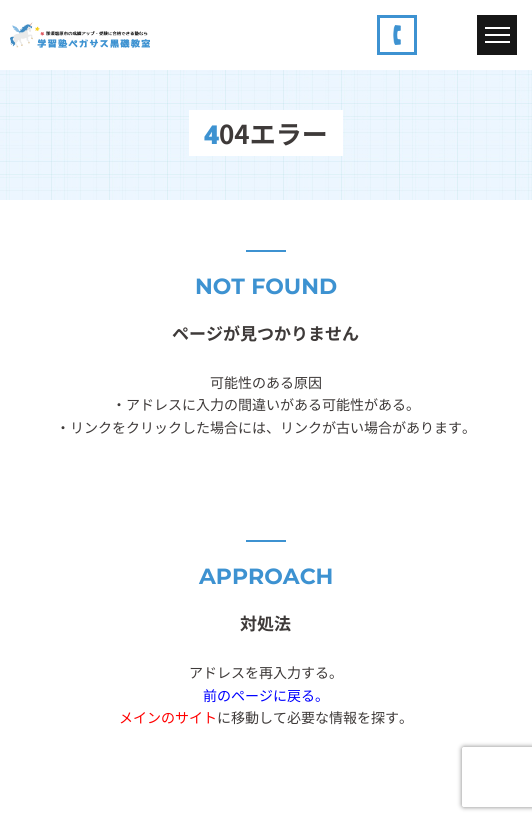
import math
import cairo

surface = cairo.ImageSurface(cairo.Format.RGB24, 532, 821)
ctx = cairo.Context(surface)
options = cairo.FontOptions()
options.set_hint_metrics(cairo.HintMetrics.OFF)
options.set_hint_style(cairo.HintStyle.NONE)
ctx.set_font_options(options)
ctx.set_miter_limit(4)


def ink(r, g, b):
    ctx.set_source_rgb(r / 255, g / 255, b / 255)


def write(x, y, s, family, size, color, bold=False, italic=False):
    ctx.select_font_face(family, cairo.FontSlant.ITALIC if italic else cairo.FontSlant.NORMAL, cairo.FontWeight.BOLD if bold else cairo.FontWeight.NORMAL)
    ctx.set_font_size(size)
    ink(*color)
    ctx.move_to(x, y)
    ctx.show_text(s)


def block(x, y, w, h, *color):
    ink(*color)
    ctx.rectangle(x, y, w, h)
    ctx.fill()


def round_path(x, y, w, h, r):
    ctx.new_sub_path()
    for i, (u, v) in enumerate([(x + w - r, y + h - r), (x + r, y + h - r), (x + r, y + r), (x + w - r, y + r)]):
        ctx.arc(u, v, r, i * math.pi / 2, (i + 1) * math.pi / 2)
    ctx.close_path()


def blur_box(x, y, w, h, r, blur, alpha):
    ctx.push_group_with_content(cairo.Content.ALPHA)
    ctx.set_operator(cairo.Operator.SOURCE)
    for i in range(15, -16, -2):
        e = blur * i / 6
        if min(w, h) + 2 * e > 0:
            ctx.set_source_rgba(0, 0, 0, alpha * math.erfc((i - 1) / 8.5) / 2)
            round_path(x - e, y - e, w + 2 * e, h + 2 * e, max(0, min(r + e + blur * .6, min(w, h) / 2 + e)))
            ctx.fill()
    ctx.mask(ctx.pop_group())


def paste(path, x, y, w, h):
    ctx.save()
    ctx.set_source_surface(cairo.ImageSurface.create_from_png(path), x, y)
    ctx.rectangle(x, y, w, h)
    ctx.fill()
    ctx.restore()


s1 = dict(family="Noto Sans Black", size=26, color=(61, 146, 209))
s2 = dict(family="Noto Sans JP", size=26, color=(62, 58, 57), bold=True)
s3 = dict(family="Montserrat", size=22, color=(61, 146, 209), bold=True)
s4 = dict(family="Noto Sans JP", size=17, color=(62, 58, 57), bold=True)
s5 = dict(family="Noto Sans JP", size=14, color=(62, 58, 57))
s6 = dict(family="Noto Sans JP", size=14, color=(0, 0, 255))
s7 = dict(family="Noto Sans JP", size=14, color=(255, 0, 0))

ink(255, 255, 255)
ctx.paint()
paste("pic1.png", 10, 22, 140, 26)
ctx.rectangle(378.5, 16.5, 37, 37)
ink(61, 146, 209)
ctx.set_line_width(3)
ctx.stroke()
paste("pic2.png", 393, 25, 8, 20)
block(477, 15, 40, 40, 23, 23, 23)
block(485, 27, 25, 2, 255, 255, 255)
block(485, 34, 25, 2, 255, 255, 255)
block(485, 41, 25, 2, 255, 255, 255)
paste("pic3.png", 0, 70, 532, 130)
block(189, 110, 154, 46, 255, 255, 255)
write(204, 144, "4", **s1)
write(219, 144, "04エラー", **s2)
block(246, 250, 40, 2, 61, 146, 209)
write(195, 294, "NOT FOUND", **s3)
write(172, 340, "ページが見つかりません", **s4)
write(210, 388, "可能性のある原因", **s5)
write(112, 410, "・アドレスに入力の間違いがある可能性がある。", **s5)
write(56, 433, "・リンクをクリックした場合には、リンクが古い場合があります。", **s5)
block(246, 540, 40, 2, 61, 146, 209)
write(199, 584, "APPROACH", **s3)
write(240, 630, "対処法", **s4)
write(189, 678, "アドレスを再入力する。", **s5)
write(203, 701, "前のページに戻る。", **s6)
write(119, 723, "メインのサイト", **s7)
write(217, 723, "に移動して必要な情報を探す。", **s5)
ctx.save()
ctx.set_fill_rule(cairo.FillRule.EVEN_ODD)
ctx.new_path()
ctx.move_to(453, 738)
ctx.line_to(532, 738)
ctx.line_to(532, 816)
ctx.line_to(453, 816)
ctx.close_path()
ctx.move_to(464, 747)
ctx.line_to(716, 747)
ctx.curve_to(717, 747, 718, 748, 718, 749)
ctx.line_to(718, 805)
ctx.curve_to(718, 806, 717, 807, 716, 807)
ctx.line_to(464, 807)
ctx.curve_to(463, 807, 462, 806, 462, 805)
ctx.line_to(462, 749)
ctx.curve_to(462, 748, 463, 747, 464, 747)
ctx.close_path()
ctx.clip()
ink(128, 128, 128)
blur_box(462, 747, 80, 60, 2, 2.5, 1)
ctx.restore()
surface.write_to_png("screenshot.png")
